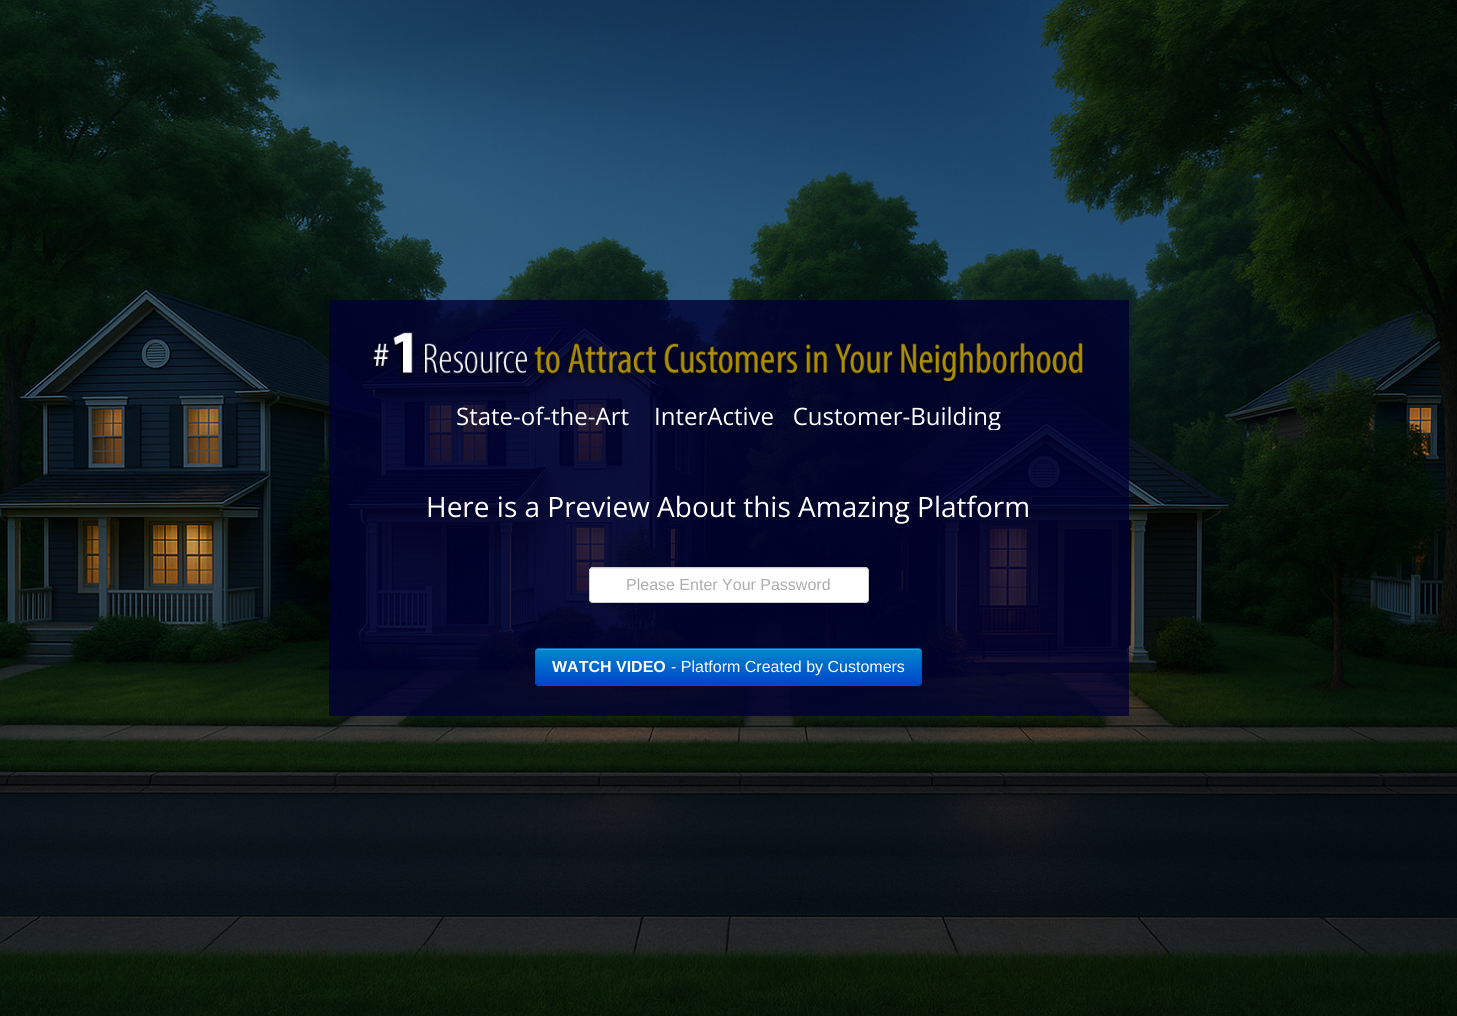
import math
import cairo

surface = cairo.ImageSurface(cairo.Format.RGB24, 1457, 1016)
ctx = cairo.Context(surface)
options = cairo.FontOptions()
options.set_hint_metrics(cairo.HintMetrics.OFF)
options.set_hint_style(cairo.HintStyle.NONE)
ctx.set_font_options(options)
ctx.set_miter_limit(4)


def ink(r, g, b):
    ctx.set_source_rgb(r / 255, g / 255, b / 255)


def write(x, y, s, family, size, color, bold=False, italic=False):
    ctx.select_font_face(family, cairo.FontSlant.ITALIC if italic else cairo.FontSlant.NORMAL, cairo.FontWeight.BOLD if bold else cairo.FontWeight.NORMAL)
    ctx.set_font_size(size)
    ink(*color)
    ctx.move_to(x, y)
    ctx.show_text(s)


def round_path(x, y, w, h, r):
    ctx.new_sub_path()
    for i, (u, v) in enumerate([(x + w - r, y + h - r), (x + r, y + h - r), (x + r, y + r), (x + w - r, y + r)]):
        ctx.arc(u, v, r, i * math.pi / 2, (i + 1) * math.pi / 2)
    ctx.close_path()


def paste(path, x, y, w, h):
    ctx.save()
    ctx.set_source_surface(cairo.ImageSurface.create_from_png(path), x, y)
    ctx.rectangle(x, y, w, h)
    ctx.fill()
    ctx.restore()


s1 = dict(family="Open Sans", size=24, color=(255, 255, 255))
s2 = dict(family="Open Sans", size=28, color=(255, 255, 255))
s3 = dict(family="Liberation Sans", size=16, color=(173, 173, 173))
s4 = dict(family="Liberation Sans", size=16, color=(255, 255, 255), bold=True)
s5 = dict(family="Liberation Sans", size=16, color=(255, 255, 255))

ink(255, 255, 255)
ctx.paint()
paste("pic1.png", 0, 0, 1457, 1016)
ctx.set_source_rgba(0, 0, 0.196, 0.8)
ctx.rectangle(329, 300, 800, 416)
ctx.fill()
paste("pic2.png", 370, 332, 714, 56)
ctx.save()
ctx.rectangle(349, 320, 760, 110)
ctx.clip()
write(456, 425, "State-of-the-Art    InterActive   Customer-Building", **s1)
ctx.restore()
write(426, 517, "Here is a Preview About this Amazing Platform", **s2)
round_path(589, 567, 280, 36, 4)
ctx.fill()
ink(236, 236, 236)
ctx.new_path()
ctx.move_to(593, 569)
ctx.line_to(865, 569)
ctx.curve_to(867, 569, 868, 570, 868, 572)
ctx.line_to(868, 571)
ctx.curve_to(868, 569, 867, 568, 865, 568)
ctx.line_to(593, 568)
ctx.curve_to(591, 568, 590, 569, 590, 571)
ctx.line_to(590, 572)
ctx.curve_to(590, 570, 591, 569, 593, 569)
ctx.close_path()
ctx.fill()
round_path(589.5, 567.5, 279, 35, 3.5)
ink(204, 204, 204)
ctx.set_line_width(1)
ctx.stroke()
write(626, 590, "Please Enter Your Password", **s3)
ink(0, 109, 204)
round_path(535, 648, 387, 38, 4)
ctx.fill()
ctx.save()
round_path(535, 648, 387, 38, 4)
ctx.clip()
gradient = cairo.LinearGradient(729, 649, 729, 685)
gradient.add_color_stop_rgba(0, 0, 0.533, 0.8, 1)
gradient.add_color_stop_rgba(1, 0, 0.267, 0.8, 1)
ctx.set_source(gradient)
ctx.rectangle(535, 649, 387, 36)
ctx.fill()
ctx.restore()
ink(51, 159, 214)
ctx.new_path()
ctx.move_to(539, 650)
ctx.line_to(918, 650)
ctx.curve_to(920, 650, 921, 651, 921, 653)
ctx.curve_to(921, 651, 920, 649, 918, 649)
ctx.line_to(539, 649)
ctx.line_to(537, 650)
ctx.line_to(536, 653)
ctx.curve_to(536, 651, 537, 650, 539, 650)
ctx.close_path()
ctx.fill()
ctx.new_path()
ctx.move_to(920.5, 684.5)
ctx.curve_to(920, 685, 919, 685.5, 918, 685.5)
ctx.line_to(539, 685.5)
ctx.curve_to(538, 685.5, 537, 685, 536.5, 684.5)
ctx.set_source_rgba(0, 0, 0, 0.25)
ctx.stroke()
ctx.new_path()
ctx.move_to(536.5, 684.5)
ctx.line_to(535.5, 682.5)
ctx.line_to(535.5, 651)
ctx.curve_to(536, 649.5, 537.5, 648.5, 539, 648.5)
ctx.line_to(918, 648.5)
ctx.curve_to(919.5, 648.5, 921, 649.5, 921.5, 651)
ctx.line_to(921.5, 682.5)
ctx.line_to(920.5, 684.5)
ctx.set_source_rgba(0, 0, 0, 0.1)
ctx.stroke()
write(552, 672, "WATCH VIDEO", **s4)
write(671, 672, "- Platform Created by Customers", **s5)
surface.write_to_png("screenshot.png")
